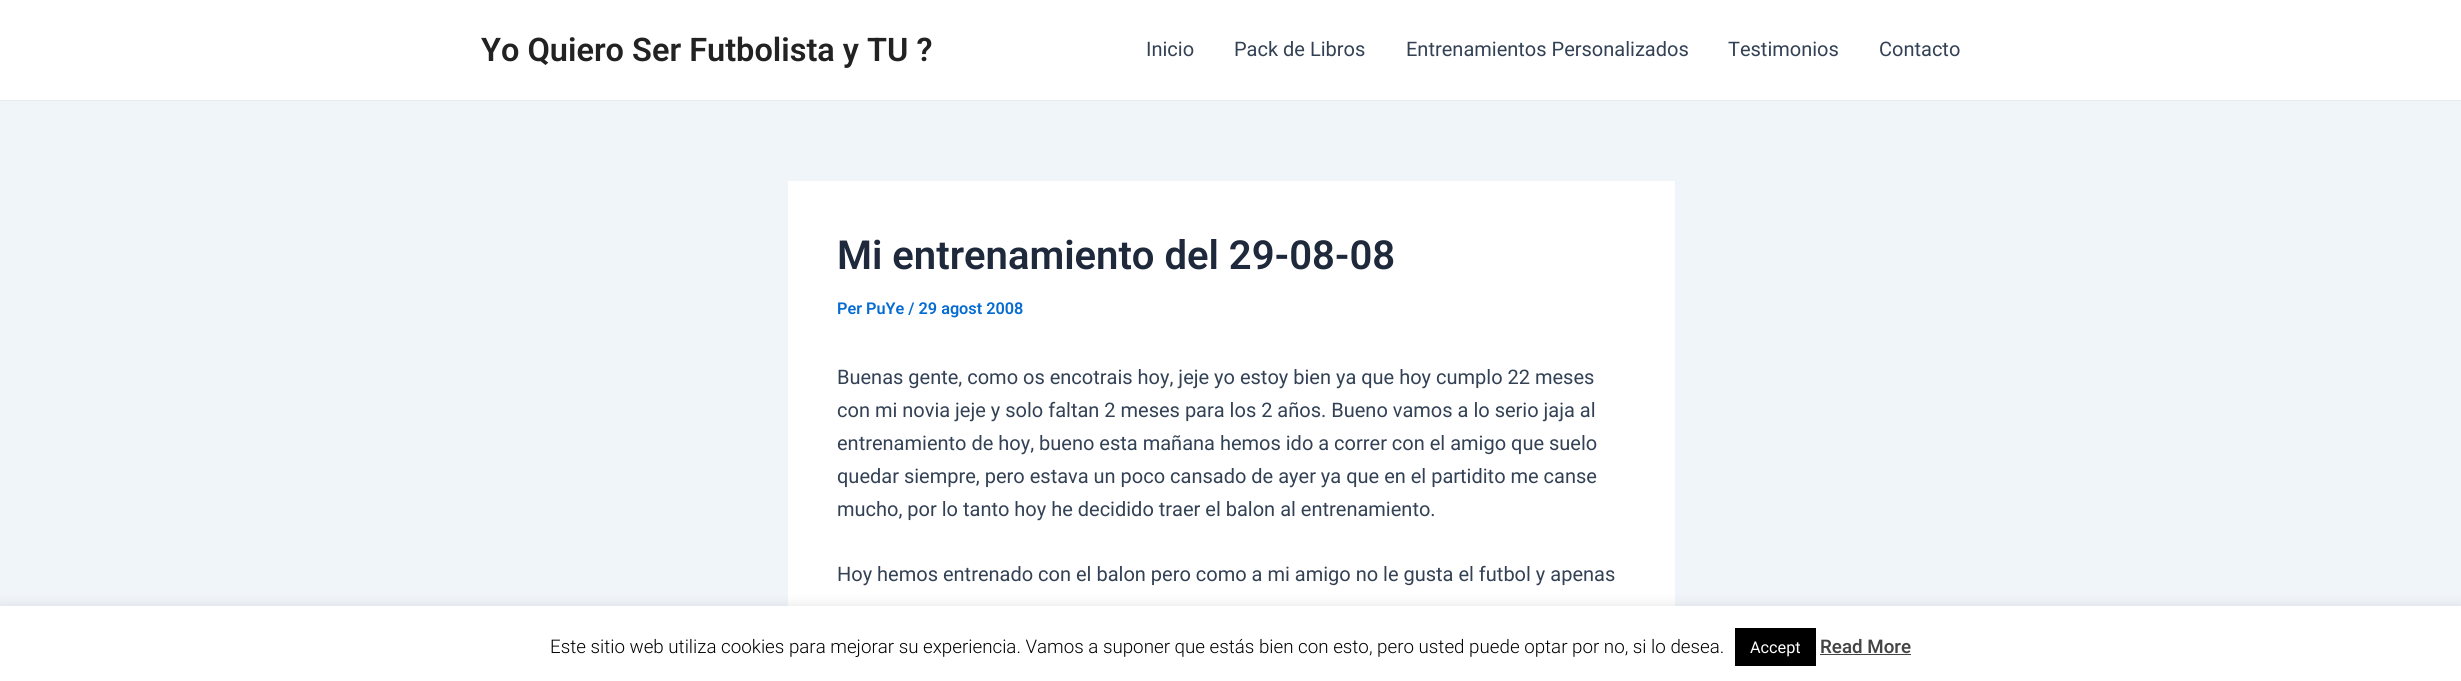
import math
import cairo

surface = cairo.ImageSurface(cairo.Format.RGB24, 2461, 681)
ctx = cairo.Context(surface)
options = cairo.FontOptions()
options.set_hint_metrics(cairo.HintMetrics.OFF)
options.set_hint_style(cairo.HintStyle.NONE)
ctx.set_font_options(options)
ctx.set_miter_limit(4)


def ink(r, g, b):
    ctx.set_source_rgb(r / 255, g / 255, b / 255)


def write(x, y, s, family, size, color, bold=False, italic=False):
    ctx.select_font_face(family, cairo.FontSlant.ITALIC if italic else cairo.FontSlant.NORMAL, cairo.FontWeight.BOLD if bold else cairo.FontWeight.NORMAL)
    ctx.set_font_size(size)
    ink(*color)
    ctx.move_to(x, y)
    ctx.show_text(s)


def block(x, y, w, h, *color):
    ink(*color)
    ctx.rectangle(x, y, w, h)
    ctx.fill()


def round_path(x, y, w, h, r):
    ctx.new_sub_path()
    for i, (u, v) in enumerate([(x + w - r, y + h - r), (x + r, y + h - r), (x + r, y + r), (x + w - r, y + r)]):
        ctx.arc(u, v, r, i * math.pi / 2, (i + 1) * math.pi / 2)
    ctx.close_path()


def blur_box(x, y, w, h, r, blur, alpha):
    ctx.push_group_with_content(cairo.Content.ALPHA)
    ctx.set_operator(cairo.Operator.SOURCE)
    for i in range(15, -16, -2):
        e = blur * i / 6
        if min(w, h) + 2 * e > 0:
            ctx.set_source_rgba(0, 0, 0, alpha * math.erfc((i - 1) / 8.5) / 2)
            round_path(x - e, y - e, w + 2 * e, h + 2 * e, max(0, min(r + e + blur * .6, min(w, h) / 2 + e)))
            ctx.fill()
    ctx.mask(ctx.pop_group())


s1 = dict(family="Roboto SemiBold", size=32.5, color=(34, 34, 34))
s2 = dict(family="Roboto", size=20, color=(51, 65, 85))
s3 = dict(family="Roboto SemiBold", size=40, color=(30, 41, 59))
s4 = dict(family="Roboto SemiBold", size=16.25, color=(4, 107, 210))
s5 = dict(family="Roboto Light", size=18.75, color=(0, 0, 0))
s6 = dict(family="Roboto", size=16.25, color=(255, 255, 255))
s7 = dict(family="Roboto Medium", size=18.75, color=(68, 68, 68))

ink(240, 245, 250)
ctx.paint()
block(0, 0, 2461, 100, 255, 255, 255)
block(0, 100, 2461, 1, 234, 234, 234)
write(481, 61, "Yo Quiero Ser Futbolista y TU ?", **s1)
write(1146, 56, "Inicio", **s2)
write(1234, 56, "Pack de Libros", **s2)
write(1406, 56, "Entrenamientos Personalizados", **s2)
write(1728, 56, "Testimonios", **s2)
write(1879, 56, "Contacto", **s2)
block(788, 181, 887, 425, 255, 255, 255)
write(837, 269, "Mi entrenamiento del 29-08-08", **s3)
write(837, 314, "Per PuYe / 29 agost 2008", **s4)
write(837, 384, "Buenas gente, como os encotrais hoy, jeje yo estoy bien ya que hoy cumplo 22 meses", **s2)
write(837, 417, "con mi novia jeje y solo faltan 2 meses para los 2 años. Bueno vamos a lo serio jaja al", **s2)
write(837, 450, "entrenamiento de hoy, bueno esta mañana hemos ido a correr con el amigo que suelo", **s2)
write(837, 483, "quedar siempre, pero estava un poco cansado de ayer ya que en el partidito me canse", **s2)
write(837, 516, "mucho, por lo tanto hoy he decidido traer el balon al entrenamiento.", **s2)
write(837, 581, "Hoy hemos entrenado con el balon pero como a mi amigo no le gusta el futbol y apenas", **s2)
ink(172, 171, 171)
blur_box(0, 605, 2461, 75, 0, 6, 0.3)
block(0, 606, 2461, 75, 255, 255, 255)
write(550, 653, "Este sitio web utiliza cookies para mejorar su experiencia. Vamos a suponer que estás bien con esto, pero usted puede optar por no, si lo desea.", **s5)
block(1735, 628, 81, 38, 0, 0, 0)
write(1750, 653, "Accept", **s6)
write(1820, 653, "Read More", **s7)
block(1820, 654, 91, 1, 68, 68, 68)
surface.write_to_png("screenshot.png")
